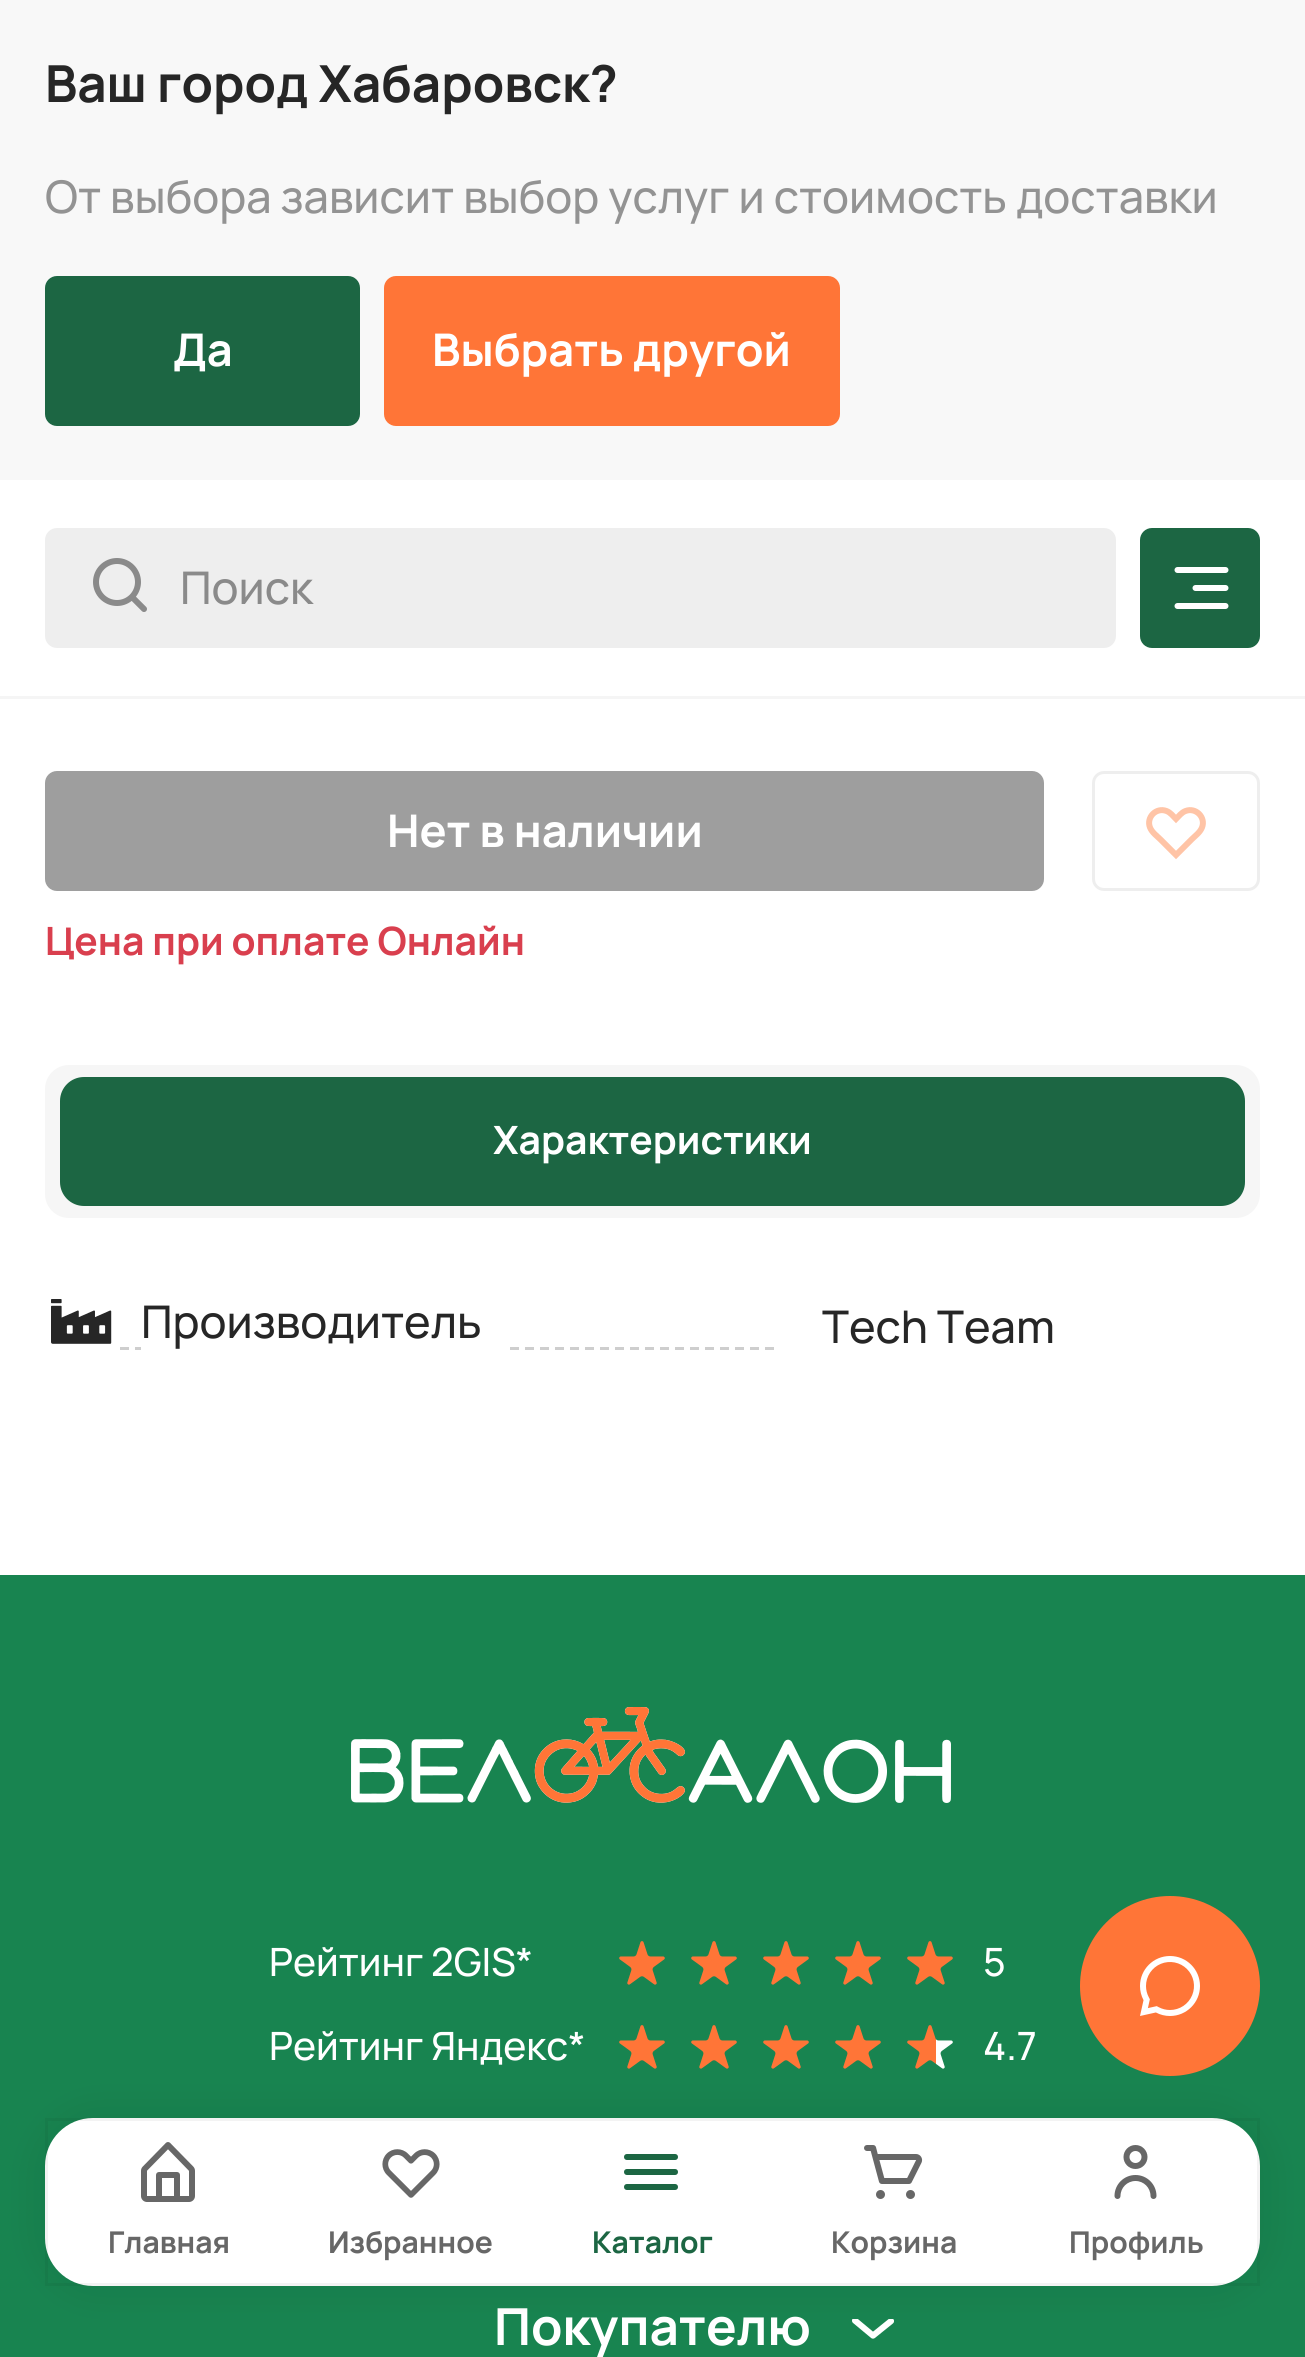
import math
import cairo

surface = cairo.ImageSurface(cairo.Format.RGB24, 1305, 2357)
ctx = cairo.Context(surface)
options = cairo.FontOptions()
options.set_hint_metrics(cairo.HintMetrics.OFF)
options.set_hint_style(cairo.HintStyle.NONE)
ctx.set_font_options(options)
ctx.set_miter_limit(4)


def ink(r, g, b):
    ctx.set_source_rgb(r / 255, g / 255, b / 255)


def write(x, y, s, family, size, color, bold=False, italic=False):
    ctx.select_font_face(family, cairo.FontSlant.ITALIC if italic else cairo.FontSlant.NORMAL, cairo.FontWeight.BOLD if bold else cairo.FontWeight.NORMAL)
    ctx.set_font_size(size)
    ink(*color)
    ctx.move_to(x, y)
    ctx.show_text(s)


def block(x, y, w, h, *color):
    ink(*color)
    ctx.rectangle(x, y, w, h)
    ctx.fill()


def round_path(x, y, w, h, r):
    ctx.new_sub_path()
    for i, (u, v) in enumerate([(x + w - r, y + h - r), (x + r, y + h - r), (x + r, y + r), (x + w - r, y + r)]):
        ctx.arc(u, v, r, i * math.pi / 2, (i + 1) * math.pi / 2)
    ctx.close_path()


def blur_box(x, y, w, h, r, blur, alpha):
    ctx.push_group_with_content(cairo.Content.ALPHA)
    ctx.set_operator(cairo.Operator.SOURCE)
    for i in range(15, -16, -2):
        e = blur * i / 6
        if min(w, h) + 2 * e > 0:
            ctx.set_source_rgba(0, 0, 0, alpha * math.erfc((i - 1) / 8.5) / 2)
            round_path(x - e, y - e, w + 2 * e, h + 2 * e, max(0, min(r + e + blur * .6, min(w, h) / 2 + e)))
            ctx.fill()
    ctx.mask(ctx.pop_group())


def paste(path, x, y, w, h):
    ctx.save()
    ctx.set_source_surface(cairo.ImageSurface.create_from_png(path), x, y)
    ctx.rectangle(x, y, w, h)
    ctx.fill()
    ctx.restore()


s1 = dict(family="Manrope", size=51, color=(38, 38, 38), bold=True)
s2 = dict(family="Manrope Medium", size=45, color=(147, 147, 147))
s3 = dict(family="Manrope", size=45, color=(255, 255, 255), bold=True)
s4 = dict(family="Manrope Medium", size=45, color=(138, 138, 138))
s5 = dict(family="Manrope", size=39, color=(217, 63, 78), bold=True)
s6 = dict(family="Manrope", size=39, color=(255, 255, 255), bold=True)
s7 = dict(family="Manrope Medium", size=45, color=(38, 38, 38))
s8 = dict(family="Manrope Medium", size=39, color=(255, 255, 255))
s9 = dict(family="Manrope", size=51, color=(255, 255, 255), bold=True)
s10 = dict(family="Manrope", size=30, color=(103, 103, 103), bold=True)
s11 = dict(family="Manrope", size=30, color=(28, 102, 67), bold=True)

ink(255, 255, 255)
ctx.paint()
block(0, 696, 1305, 3, 245, 245, 245)
block(0, 0, 1305, 480, 248, 248, 248)
write(45, 102, "Ваш город Хабаровск?", **s1)
write(45, 213, "От выбора зависит выбор услуг и стоимость доставки", **s2)
ink(28, 102, 67)
round_path(45, 276, 315, 150, 12)
ctx.fill()
write(173, 366, "Да", **s3)
ink(255, 117, 55)
round_path(384, 276, 456, 150, 12)
ctx.fill()
write(432, 366, "Выбрать другой", **s3)
ink(238, 238, 238)
round_path(45, 528, 1071, 120, 12)
ctx.fill()
paste("pic1.png", 93, 558, 54, 54)
write(180, 604, "Поиск", **s4)
ink(28, 102, 67)
round_path(1140, 528, 120, 120, 12)
ctx.fill()
paste("pic2.png", 1174, 567, 55, 42)
ink(158, 158, 158)
round_path(45, 771, 999, 120, 12)
ctx.fill()
write(387, 847, "Нет в наличии", **s3)
round_path(1093.5, 772.5, 165, 117, 10.5)
ink(238, 238, 238)
ctx.set_line_width(3)
ctx.stroke()
ctx.new_path()
ctx.move_to(1176, 855)
ctx.line_to(1160.5, 839.5)
ctx.curve_to(1157, 836, 1152, 832.5, 1150, 827.5)
ctx.curve_to(1146, 817.5, 1156, 807, 1166.5, 811)
ctx.curve_to(1170.5, 812.5, 1173, 816, 1176, 819)
ctx.curve_to(1179, 816, 1181.5, 812.5, 1185.5, 811)
ctx.curve_to(1196, 807, 1206, 817.5, 1202, 827.5)
ctx.curve_to(1200, 832.5, 1195, 836, 1191.5, 839.5)
ctx.close_path()
ink(255, 196, 166)
ctx.set_line_width(6)
ctx.stroke()
write(45, 955, "Цена при оплате Онлайн", **s5)
ink(246, 246, 246)
round_path(45, 1065, 1215, 153, 24)
ctx.fill()
ink(28, 102, 67)
round_path(61.5, 1078.5, 1182, 126, 22.5)
ctx.fill_preserve()
ctx.set_line_width(3)
ctx.stroke()
write(493, 1154, "Характеристики", **s6)
ctx.new_path()
ctx.move_to(45, 1348.5)
ctx.line_to(774, 1348.5)
ink(206, 206, 206)
ctx.set_dash([9, 6])
ctx.stroke()
block(45, 1347, 69, 3, 255, 255, 255)
block(141, 1347, 363, 3, 255, 255, 255)
paste("pic3.png", 51, 1299, 61, 45)
write(141, 1338, "Производитель", **s7)
write(822, 1343, "Tech Team", **s7)
block(0, 1575, 1305, 782, 24, 132, 80)
paste("pic4.png", 351, 1707, 600, 96)
write(269, 1976, "Рейтинг 2GIS*", **s8)
paste("pic5.png", 619, 1941, 46, 44)
paste("pic5.png", 691, 1941, 46, 44)
paste("pic5.png", 763, 1941, 46, 44)
paste("pic5.png", 835, 1941, 46, 44)
paste("pic5.png", 907, 1941, 46, 44)
paste("pic6.png", 619, 1941, 46, 44)
paste("pic6.png", 691, 1941, 46, 44)
paste("pic6.png", 763, 1941, 46, 44)
paste("pic6.png", 835, 1941, 46, 44)
paste("pic6.png", 907, 1941, 46, 44)
write(983, 1976, "5", **s8)
write(269, 2060, "Рейтинг Яндекс*", **s8)
paste("pic5.png", 619, 2025, 46, 44)
paste("pic5.png", 691, 2025, 46, 44)
paste("pic5.png", 763, 2025, 46, 44)
paste("pic5.png", 835, 2025, 46, 44)
paste("pic5.png", 907, 2025, 46, 44)
paste("pic6.png", 619, 2025, 46, 44)
paste("pic6.png", 691, 2025, 46, 44)
paste("pic6.png", 763, 2025, 46, 44)
paste("pic6.png", 835, 2025, 46, 44)
paste("pic7.png", 907, 2025, 29, 44)
write(983, 2060, "4.7", **s8)
write(494, 2345, "Покупателю", **s9)
paste("pic8.png", 852, 2319, 42, 20)
ink(255, 117, 55)
ctx.arc(1170, 1986, 90, 0, 2 * math.pi)
ctx.fill()
paste("pic9.png", 1140, 1956, 60, 60)
ink(0, 0, 0)
blur_box(45, 2118, 1215, 168, 48, 22.5, 0.08)
ink(255, 255, 255)
round_path(45, 2118, 1215, 168, 48)
ctx.fill()
ctx.rectangle(46.5, 2119.5, 1212, 165)
ctx.set_source_rgba(0, 0, 0, 0.05)
ctx.set_dash([])
ctx.stroke()
paste("pic10.png", 141, 2142, 54, 60)
write(108, 2253, "Главная", **s10)
paste("pic11.png", 382, 2149, 58, 49)
write(328, 2253, "Избранное", **s10)
paste("pic12.png", 624, 2154, 54, 36)
write(592, 2253, "Каталог", **s11)
paste("pic13.png", 864, 2145, 59, 54)
write(831, 2253, "Корзина", **s10)
paste("pic14.png", 1114, 2145, 43, 54)
write(1069, 2253, "Профиль", **s10)
surface.write_to_png("screenshot.png")
